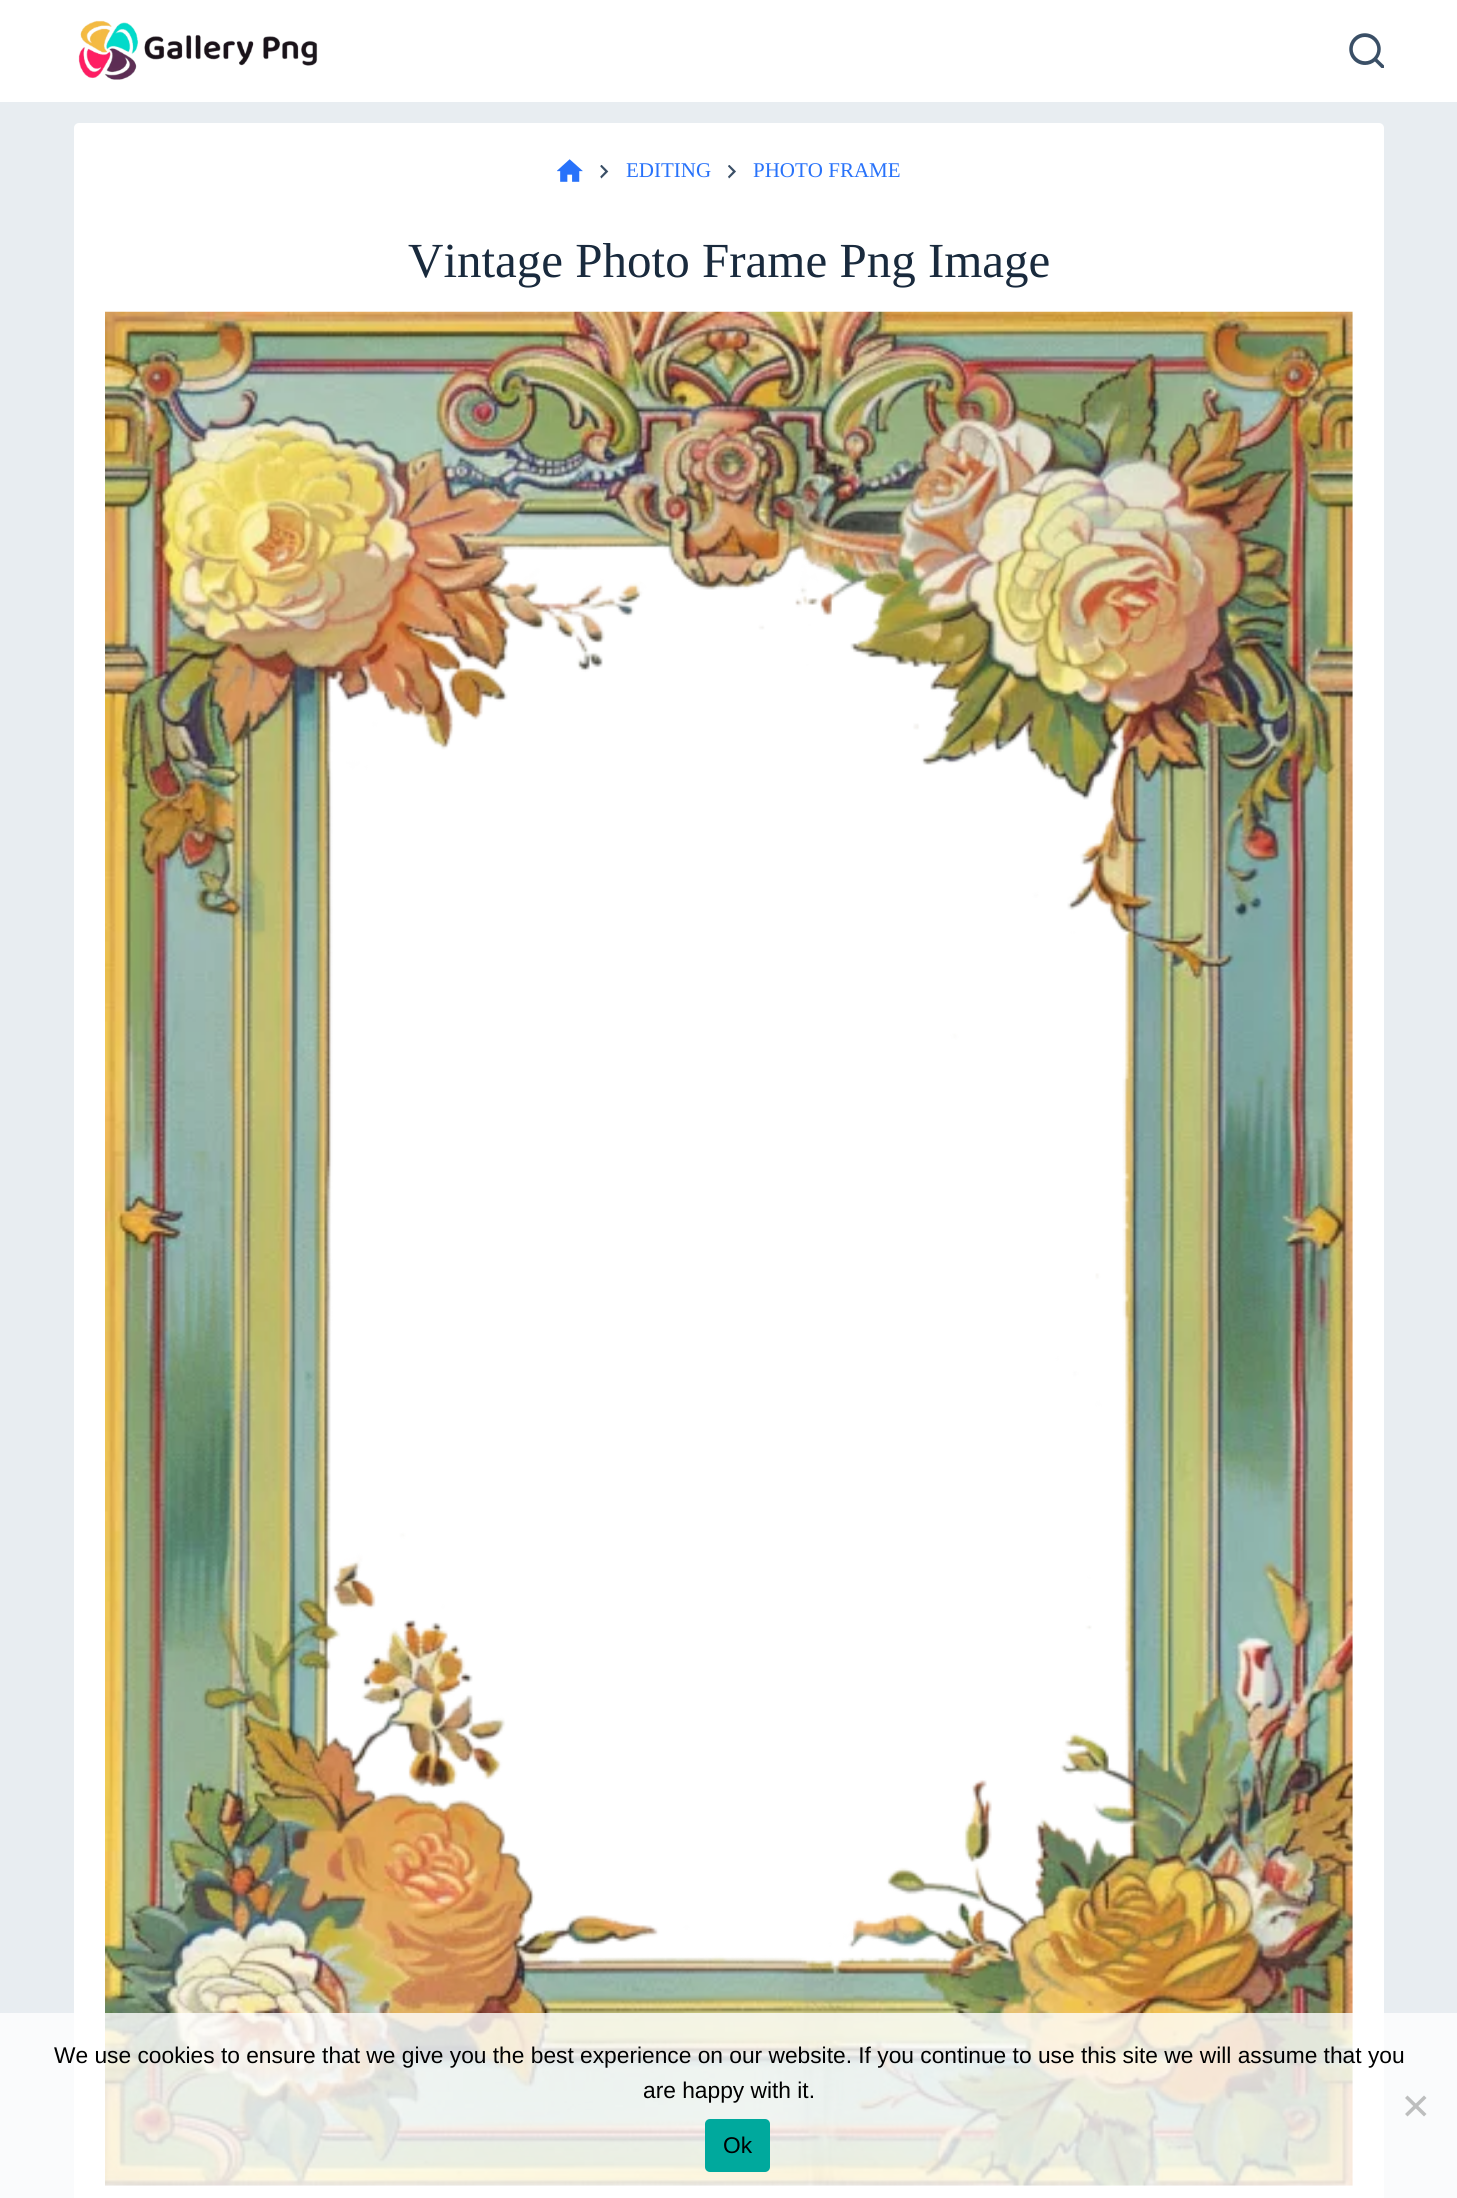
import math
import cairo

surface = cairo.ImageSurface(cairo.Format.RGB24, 1457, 2198)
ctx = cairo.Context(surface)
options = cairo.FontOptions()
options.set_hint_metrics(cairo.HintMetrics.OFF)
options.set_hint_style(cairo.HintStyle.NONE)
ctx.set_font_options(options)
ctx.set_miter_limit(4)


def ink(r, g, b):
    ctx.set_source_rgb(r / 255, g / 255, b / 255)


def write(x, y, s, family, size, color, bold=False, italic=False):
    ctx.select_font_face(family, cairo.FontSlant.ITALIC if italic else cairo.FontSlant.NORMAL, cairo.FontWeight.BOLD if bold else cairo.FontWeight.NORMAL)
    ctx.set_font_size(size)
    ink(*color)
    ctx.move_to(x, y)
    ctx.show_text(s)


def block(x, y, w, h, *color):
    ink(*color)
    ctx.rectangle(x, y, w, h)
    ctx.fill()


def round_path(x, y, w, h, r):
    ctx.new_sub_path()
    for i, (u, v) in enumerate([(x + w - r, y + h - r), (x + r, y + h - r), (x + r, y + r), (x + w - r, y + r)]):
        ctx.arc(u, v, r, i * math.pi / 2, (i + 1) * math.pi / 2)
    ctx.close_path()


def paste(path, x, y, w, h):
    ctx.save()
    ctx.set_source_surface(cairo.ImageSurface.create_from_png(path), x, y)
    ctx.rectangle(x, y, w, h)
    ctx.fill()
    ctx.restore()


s1 = dict(family="Liberation Serif", size=21, color=(40, 114, 250))
s2 = dict(family="Liberation Serif", size=49, color=(25, 42, 61))
s3 = dict(family="Liberation Sans", size=22.75, color=(0, 0, 0))

ink(232, 237, 241)
ctx.paint()
block(0, 0, 1457, 102, 255, 255, 255)
paste("pic1.png", 78, 20, 240, 60)
paste("pic2.png", 1349, 33, 35, 35)
round_path(74, 123, 1310, 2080, 5)
ctx.fill()
paste("pic3.png", 557, 159, 26, 23)
paste("pic4.png", 600, 165, 9, 14)
write(626, 177, "EDITING", **s1)
paste("pic5.png", 728, 165, 8, 14)
write(753, 177, "PHOTO FRAME", **s1)
write(408, 277, "Vintage Photo Frame Png Image", **s2)
paste("pic6.png", 105, 311, 1248, 1875)
ctx.set_source_rgba(1, 1, 1, 0.8)
ctx.rectangle(0, 2013, 1457, 185)
ctx.fill()
write(54, 2063, "We use cookies to ensure that we give you the best experience on our website. If you continue to use this site we will assume that you", **s3)
write(643, 2098, "are happy with it.", **s3)
ink(189, 190, 190)
ctx.new_path()
ctx.move_to(1424, 2095.5)
ctx.line_to(1426.5, 2098)
ctx.line_to(1407.5, 2116.5)
ctx.line_to(1405, 2114)
ctx.close_path()
ctx.fill()
ctx.new_path()
ctx.move_to(1405, 2098)
ctx.line_to(1407.5, 2095.5)
ctx.line_to(1426.5, 2114)
ctx.line_to(1424, 2116.5)
ctx.close_path()
ctx.fill()
ink(0, 169, 157)
round_path(705, 2119, 65, 53, 5)
ctx.fill()
write(723, 2153, "Ok", **s3)
surface.write_to_png("screenshot.png")
